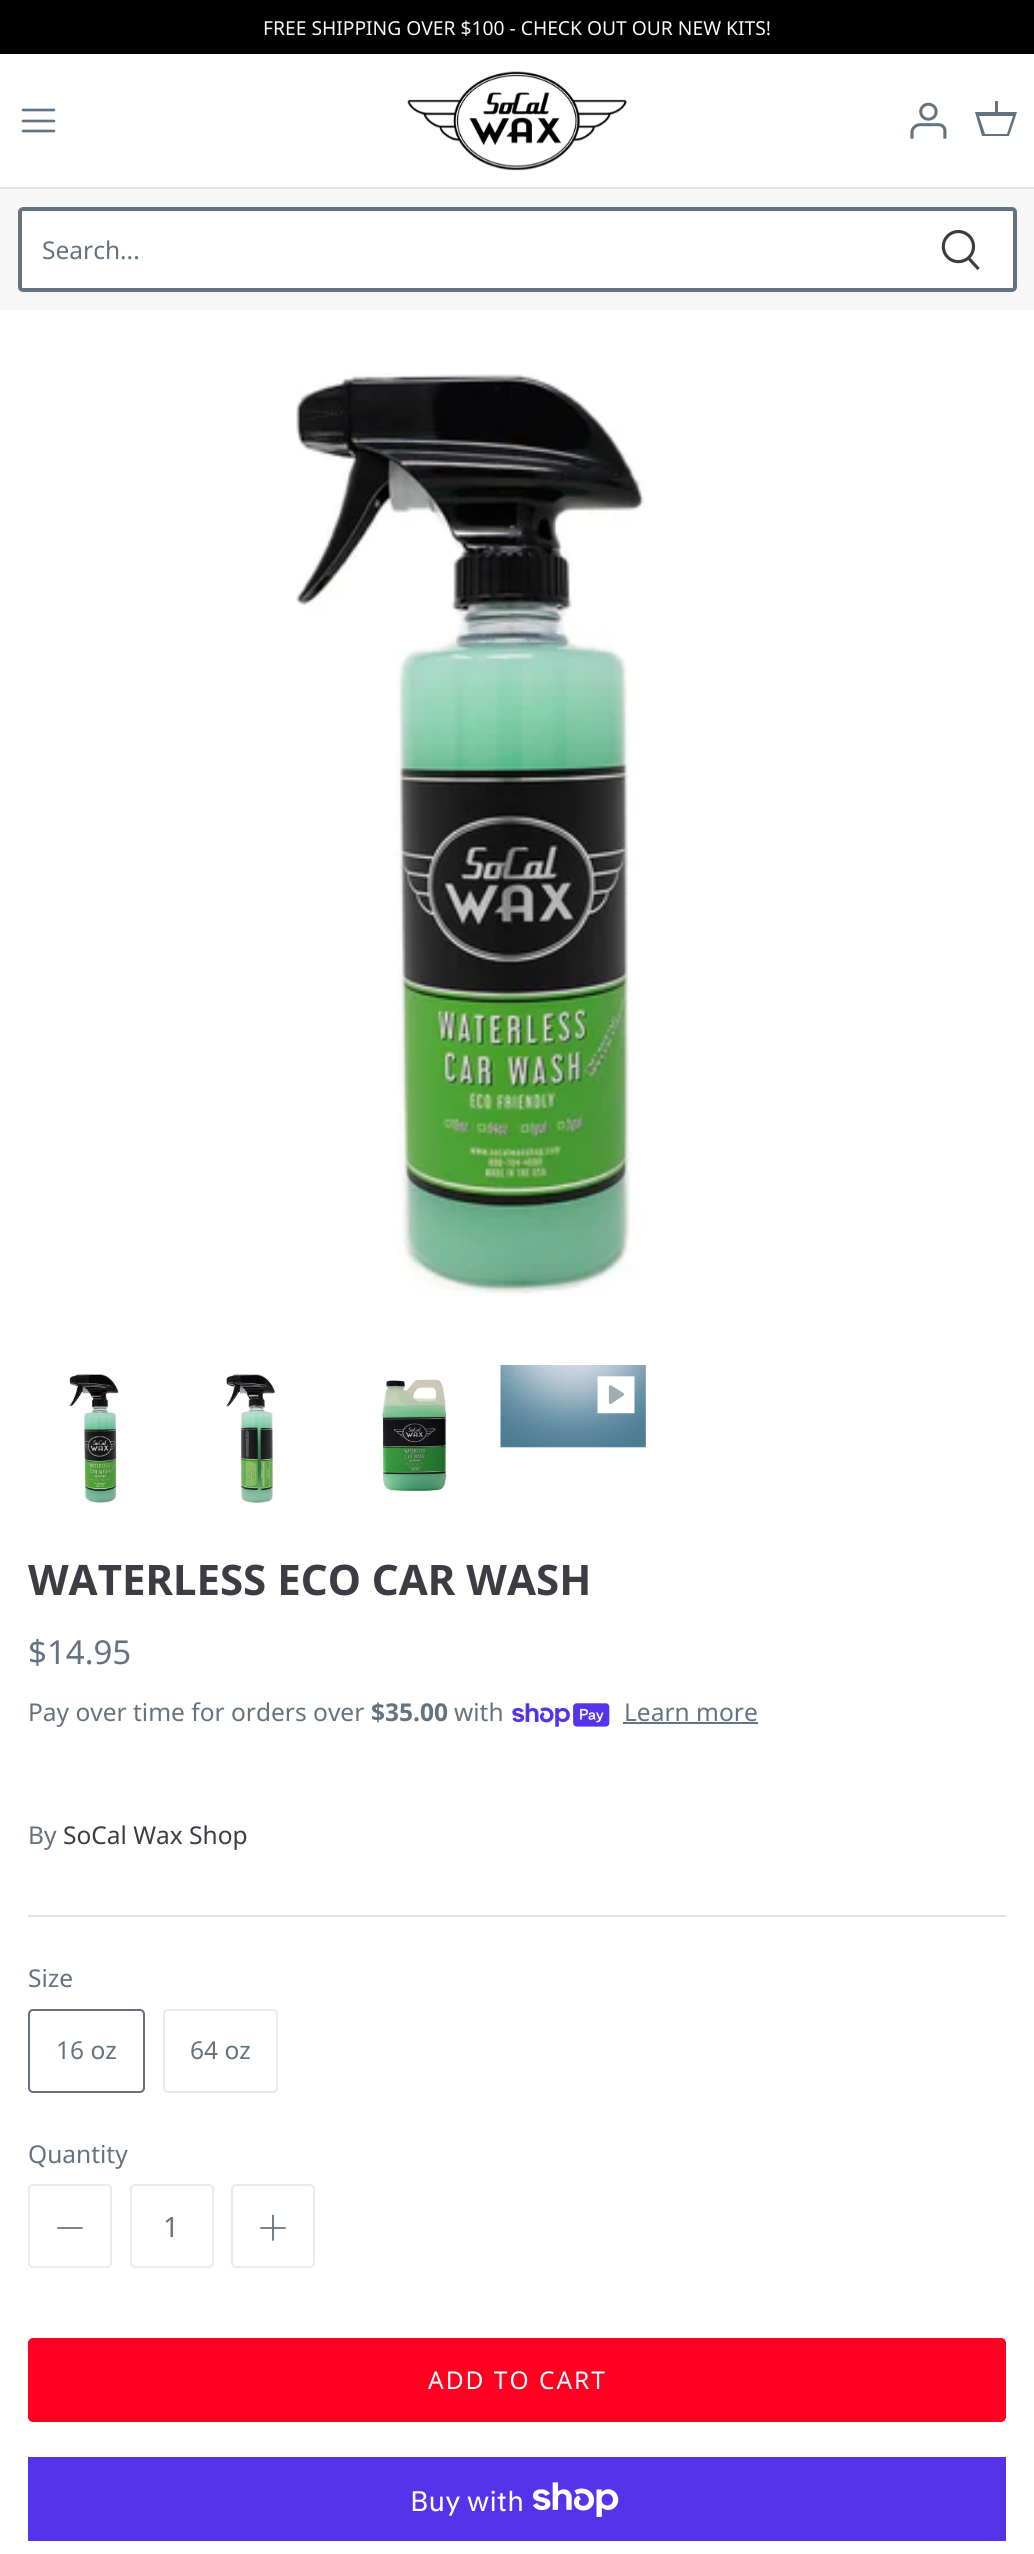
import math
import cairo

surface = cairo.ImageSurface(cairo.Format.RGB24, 1034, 2554)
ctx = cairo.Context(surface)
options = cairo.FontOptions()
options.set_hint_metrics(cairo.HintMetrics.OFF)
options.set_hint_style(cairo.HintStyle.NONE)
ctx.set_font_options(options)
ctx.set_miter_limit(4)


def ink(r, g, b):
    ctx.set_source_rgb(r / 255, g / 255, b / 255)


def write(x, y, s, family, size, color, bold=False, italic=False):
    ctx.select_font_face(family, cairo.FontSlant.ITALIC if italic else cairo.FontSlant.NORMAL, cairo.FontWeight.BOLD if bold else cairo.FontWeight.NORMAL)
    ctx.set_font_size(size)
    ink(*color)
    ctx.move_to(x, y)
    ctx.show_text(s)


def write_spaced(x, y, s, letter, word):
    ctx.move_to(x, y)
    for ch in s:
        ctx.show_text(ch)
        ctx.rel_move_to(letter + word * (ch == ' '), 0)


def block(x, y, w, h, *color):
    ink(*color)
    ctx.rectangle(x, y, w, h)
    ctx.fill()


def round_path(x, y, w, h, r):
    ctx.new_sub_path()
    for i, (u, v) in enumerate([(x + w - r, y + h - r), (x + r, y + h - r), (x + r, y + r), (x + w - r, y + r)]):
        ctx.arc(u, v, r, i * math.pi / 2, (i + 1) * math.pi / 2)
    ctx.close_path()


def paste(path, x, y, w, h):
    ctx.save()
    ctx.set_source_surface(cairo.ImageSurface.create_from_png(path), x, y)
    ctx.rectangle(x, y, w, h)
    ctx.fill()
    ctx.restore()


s1 = dict(family="Noto Sans", size=19.25, color=(248, 248, 248))
s2 = dict(family="Noto Sans", size=24.5, color=(99, 115, 129))
s3 = dict(family="Noto Sans", size=42, color=(60, 60, 68), bold=True)
s4 = dict(family="Noto Sans", size=33, color=(99, 115, 129))
s5 = dict(family="Noto Sans", size=24.5, color=(99, 115, 129), bold=True)
s6 = dict(family="Noto Sans", size=24.5, color=(60, 60, 68))
s7 = dict(family="Noto Sans", size=28, color=(99, 115, 129))
s8 = dict(family="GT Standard", size=28, color=(255, 255, 255))

ink(255, 255, 255)
ctx.paint()
block(0, 0, 1034, 54, 0, 0, 0)
write(263, 35, "FREE SHIPPING OVER $100 - CHECK OUT OUR NEW KITS!", **s1)
block(0, 187, 1034, 2, 226, 226, 226)
ctx.new_path()
ctx.move_to(23, 121)
ctx.line_to(54, 121)
ctx.move_to(23, 110)
ctx.line_to(54, 110)
ctx.move_to(23, 131)
ctx.line_to(54, 131)
ink(99, 115, 129)
ctx.set_line_width(2.6)
ctx.set_line_cap(cairo.LineCap.ROUND)
ctx.set_line_join(cairo.LineJoin.ROUND)
ctx.stroke()
paste("pic1.png", 407, 71, 220, 100)
paste("pic2.png", 910, 102, 37, 37)
ctx.new_path()
ctx.move_to(995, 112)
ctx.line_to(995, 101)
ctx.line_to(998, 101)
ctx.line_to(998, 112)
ctx.line_to(1017, 112)
ctx.line_to(1009, 136)
ctx.line_to(982, 136)
ctx.line_to(975, 112)
ctx.close_path()
ctx.move_to(979, 116)
ctx.line_to(985, 134)
ctx.line_to(1007, 134)
ctx.line_to(1013, 116)
ctx.close_path()
ctx.fill()
block(0, 189, 1034, 121, 247, 247, 247)
ink(255, 255, 255)
round_path(20, 209, 995, 81, 3)
ctx.fill_preserve()
ink(99, 115, 129)
ctx.set_line_width(4)
ctx.set_line_cap(cairo.LineCap.BUTT)
ctx.set_line_join(cairo.LineJoin.MITER)
ctx.stroke()
write(42, 259, "Search...", **s2)
paste("pic3.png", 941, 230, 39, 40)
paste("pic4.png", 296, 373, 350, 923)
paste("pic5.png", 69, 1374, 50, 130)
paste("pic6.png", 226, 1374, 49, 130)
paste("pic7.png", 382, 1379, 65, 113)
paste("pic8.png", 500, 1365, 146, 83)
paste("pic9.png", 597, 1376, 38, 38)
block(28, 1915, 978, 2, 226, 226, 226)
write(28, 1595, "WATERLESS ECO CAR WASH", **s3)
write(28, 1664, "$14.95", **s4)
write(28, 1721, "Pay over time for orders over", **s2)
write(371, 1721, "$35.00", **s5)
write(454, 1721, "with", **s2)
paste("pic10.png", 512, 1703, 98, 24)
write(624, 1721, "Learn more", **s2)
block(623, 1722, 135, 2, 99, 115, 129)
write(28, 1844, "By", **s2)
write(63, 1844, "SoCal Wax Shop", **s6)
write(28, 1987, "Size", **s2)
round_path(29, 2010, 115, 82, 4)
ctx.set_line_width(2)
ctx.stroke()
write(56, 2059, "16 oz", **s2)
round_path(164, 2010, 113, 82, 4)
ink(232, 234, 236)
ctx.stroke()
write(190, 2059, "64 oz", **s2)
write(28, 2163, "Quantity", **s2)
round_path(29, 2185, 82, 82, 4)
ink(232, 234, 236)
ctx.stroke()
ctx.new_path()
ctx.move_to(58, 2228)
ctx.line_to(82, 2228)
ink(99, 115, 129)
ctx.set_line_width(1.8)
ctx.set_line_cap(cairo.LineCap.ROUND)
ctx.set_line_join(cairo.LineJoin.ROUND)
ctx.stroke()
round_path(131, 2185, 82, 82, 4)
ink(232, 234, 236)
ctx.set_line_width(2)
ctx.set_line_cap(cairo.LineCap.BUTT)
ctx.set_line_join(cairo.LineJoin.MITER)
ctx.stroke()
write(163, 2237, "1", **s7)
round_path(232, 2185, 82, 82, 4)
ink(232, 234, 236)
ctx.stroke()
ctx.new_path()
ctx.move_to(273, 2215.5)
ctx.line_to(273, 2240)
ctx.move_to(261, 2228)
ctx.line_to(285, 2228)
ink(99, 115, 129)
ctx.set_line_width(1.8)
ctx.set_line_cap(cairo.LineCap.ROUND)
ctx.set_line_join(cairo.LineJoin.ROUND)
ctx.stroke()
ink(255, 0, 33)
round_path(29, 2339, 976, 82, 4)
ctx.fill_preserve()
ctx.set_line_width(2)
ctx.set_line_cap(cairo.LineCap.BUTT)
ctx.set_line_join(cairo.LineJoin.MITER)
ctx.stroke()
ctx.set_font_size(24.5)
ink(255, 255, 255)
write_spaced(428, 2389, "ADD TO CART", 2, 0)
block(28, 2457, 978, 84, 84, 51, 235)
write(410, 2511, "Buy with", **s8)
paste("pic11.png", 533, 2482, 86, 35)
surface.write_to_png("screenshot.png")
